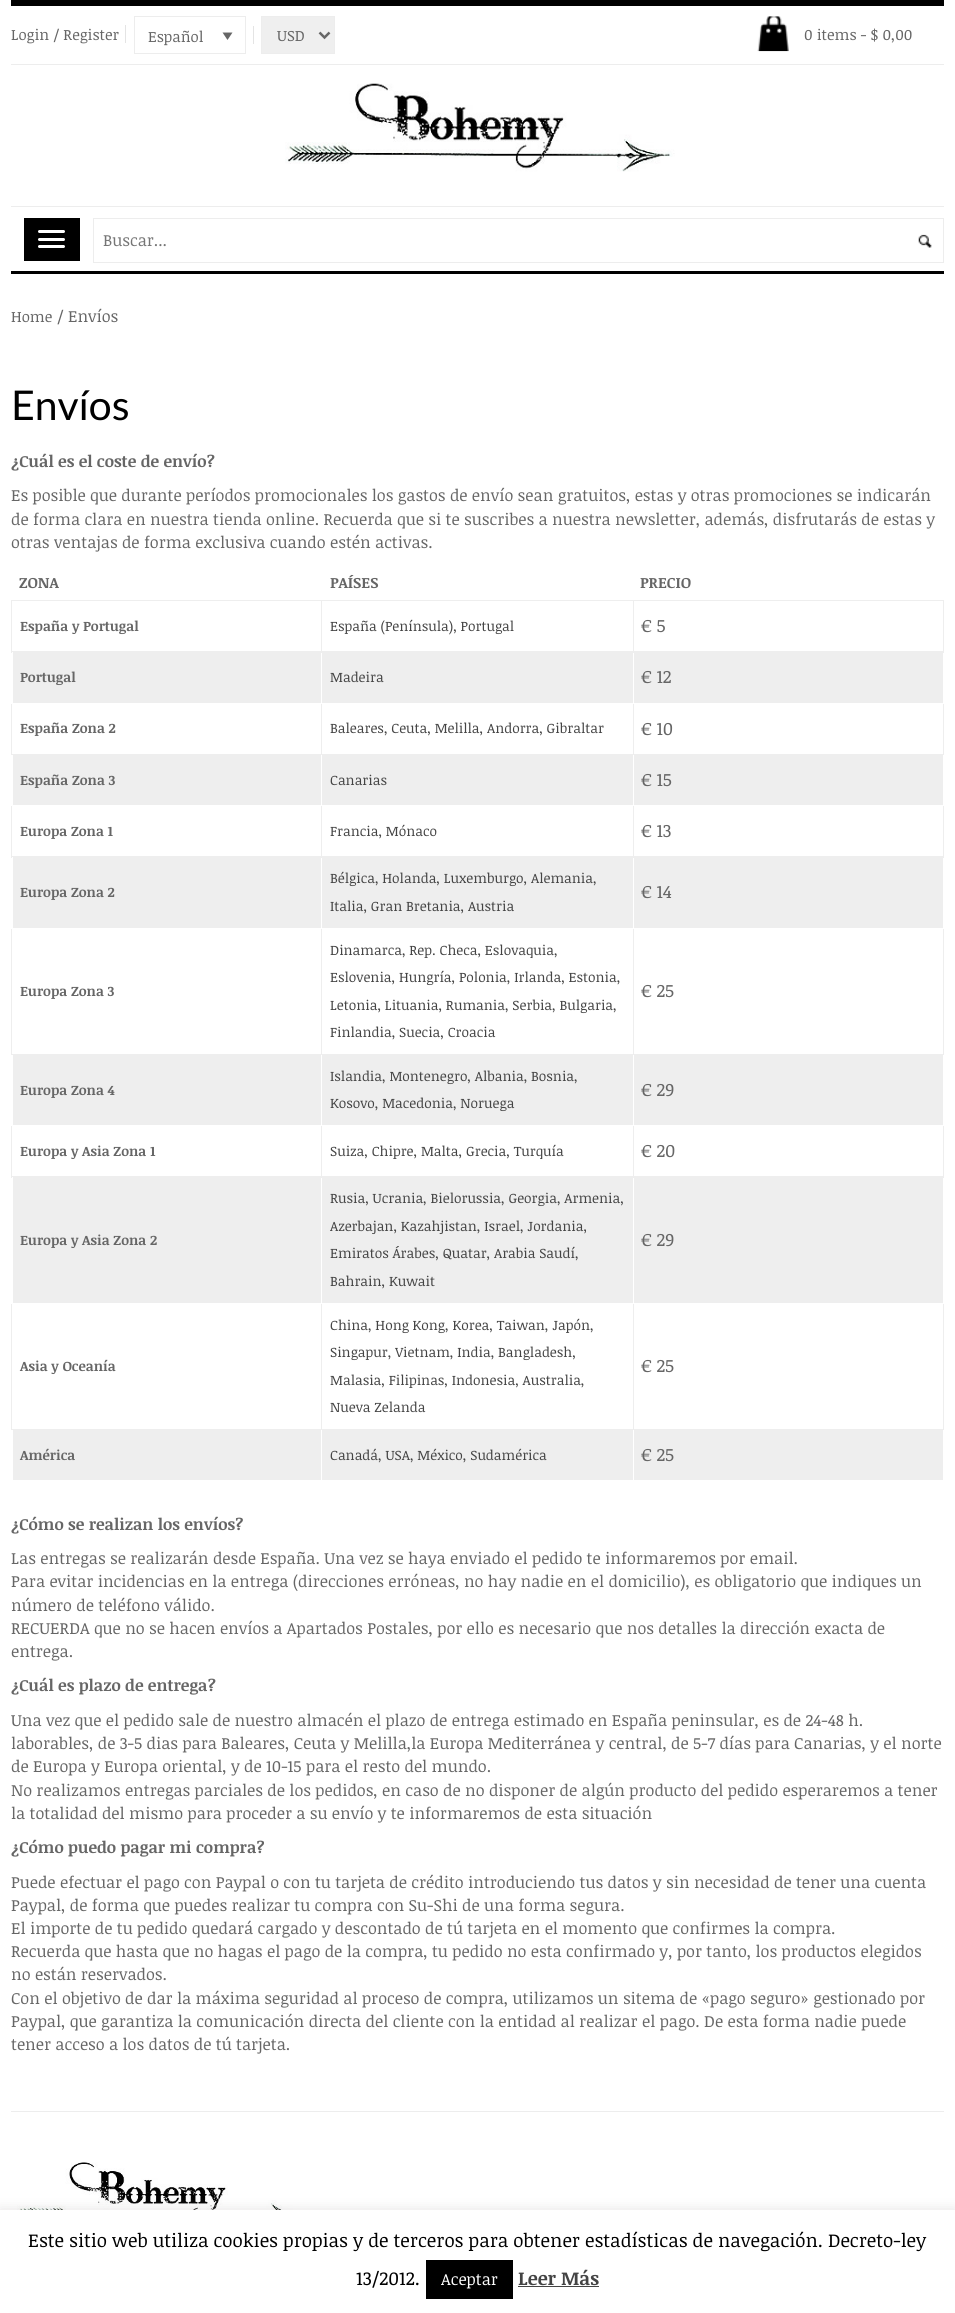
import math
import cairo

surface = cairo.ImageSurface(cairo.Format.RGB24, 955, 2313)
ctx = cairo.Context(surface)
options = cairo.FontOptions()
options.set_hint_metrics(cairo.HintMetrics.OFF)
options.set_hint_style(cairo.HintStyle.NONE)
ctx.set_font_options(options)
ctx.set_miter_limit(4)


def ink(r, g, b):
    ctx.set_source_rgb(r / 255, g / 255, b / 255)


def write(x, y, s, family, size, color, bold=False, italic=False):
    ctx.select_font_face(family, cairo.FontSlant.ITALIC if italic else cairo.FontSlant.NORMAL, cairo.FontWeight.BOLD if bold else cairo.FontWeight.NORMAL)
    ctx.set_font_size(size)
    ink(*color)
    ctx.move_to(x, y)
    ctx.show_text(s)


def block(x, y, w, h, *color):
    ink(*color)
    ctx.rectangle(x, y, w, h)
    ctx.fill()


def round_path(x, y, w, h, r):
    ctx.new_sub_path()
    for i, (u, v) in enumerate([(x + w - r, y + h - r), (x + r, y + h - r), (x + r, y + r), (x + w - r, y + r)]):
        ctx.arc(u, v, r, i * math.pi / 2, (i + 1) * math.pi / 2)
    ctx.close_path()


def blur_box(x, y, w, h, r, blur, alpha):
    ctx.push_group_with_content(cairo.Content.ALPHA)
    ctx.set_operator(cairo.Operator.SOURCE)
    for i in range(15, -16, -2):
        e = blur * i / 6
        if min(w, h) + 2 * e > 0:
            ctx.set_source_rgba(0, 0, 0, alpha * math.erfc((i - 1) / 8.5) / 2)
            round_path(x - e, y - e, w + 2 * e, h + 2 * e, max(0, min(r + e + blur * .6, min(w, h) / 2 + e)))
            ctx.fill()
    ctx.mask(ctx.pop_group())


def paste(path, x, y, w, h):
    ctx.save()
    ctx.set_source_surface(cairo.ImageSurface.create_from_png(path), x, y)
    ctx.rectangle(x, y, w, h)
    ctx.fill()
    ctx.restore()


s1 = dict(family="Noticia Text", size=15, color=(102, 102, 102))
s2 = dict(family="Noticia Text", size=16.25, color=(117, 117, 117))
s3 = dict(family="Noticia Text", size=16.25, color=(102, 102, 102))
s4 = dict(family="Lato", size=41, color=(0, 0, 0))
s5 = dict(family="Noticia Text", size=16.25, color=(102, 102, 102), bold=True)
s6 = dict(family="Noticia Text", size=15, color=(102, 102, 102), bold=True)
s7 = dict(family="Noticia Text", size=13.75, color=(102, 102, 102), bold=True)
s8 = dict(family="Noticia Text", size=13.75, color=(68, 68, 68))
s9 = dict(family="Noticia Text", size=18, color=(102, 102, 102))
s10 = dict(family="Noticia Text", size=18.75, color=(0, 0, 0))
s11 = dict(family="Noticia Text", size=16.25, color=(255, 255, 255))
s12 = dict(family="Noticia Text", size=18.75, color=(68, 68, 68), bold=True)

ink(255, 255, 255)
ctx.paint()
block(11, 0, 933, 6, 0, 0, 0)
block(11, 64, 933, 1, 237, 237, 237)
write(11, 40, "Login / Register", **s1)
block(125, 25, 1, 18, 228, 228, 228)
ctx.rectangle(134.5, 16.5, 111, 37)
ink(237, 237, 237)
ctx.set_line_width(1)
ctx.stroke()
write(148, 42, "Español", **s1)
ctx.new_path()
ctx.move_to(222.5, 32.5)
ctx.line_to(232.5, 32.5)
ctx.line_to(227.5, 40)
ctx.close_path()
ctx.fill()
block(253, 26, 1, 18, 228, 228, 228)
ink(239, 239, 239)
ctx.rectangle(261.5, 16.5, 73, 37)
ctx.fill_preserve()
ink(237, 237, 237)
ctx.stroke()
ctx.new_path()
ctx.move_to(319.5, 32.5)
ctx.line_to(324.5, 37.5)
ctx.line_to(329.5, 32.5)
ink(102, 102, 102)
ctx.set_line_width(2.5)
ctx.stroke()
write(277, 41, "USD", **s1)
paste("pic1.png", 757, 16, 32, 36)
write(804, 40, "0 items - $ 0,00", **s1)
paste("pic2.png", 285, 83, 390, 89)
block(11, 206, 933, 1, 237, 237, 237)
block(11, 271, 933, 3, 0, 0, 0)
block(24, 218, 56, 43, 0, 0, 0)
ink(255, 255, 255)
round_path(38, 230, 27, 3, 1.5)
ctx.fill()
round_path(38, 238, 27, 3, 1.5)
ctx.fill()
round_path(38, 245, 27, 3, 1.5)
ctx.fill()
ctx.rectangle(93.5, 218.5, 850, 44)
ink(237, 237, 237)
ctx.set_line_width(1)
ctx.stroke()
write(103, 246, "Buscar...", **s2)
paste("pic3.png", 918, 234, 14, 14)
write(11, 322, "Home", **s1)
write(57, 322, "/ Envíos", **s3)
write(11, 420, "Envíos", **s4)
write(11, 467, "¿Cuál es el coste de envío?", **s5)
write(11, 501, "Es posible que durante períodos promocionales los gastos de envío sean gratuitos, estas y otras promociones se indicarán", **s3)
write(11, 525, "de forma clara en nuestra tienda online. Recuerda que si te suscribes a nuestra newsletter, además, disfrutarás de estas y", **s3)
write(11, 548, "otras ventajas de forma exclusiva cuando estén activas.", **s3)
write(19, 588, "ZONA", **s6)
write(330, 588, "PAÍSES", **s6)
write(640, 588, "PRECIO", **s6)
block(633, 600, 311, 1, 238, 238, 238)
block(943, 600, 1, 53, 238, 238, 238)
block(633, 651, 311, 1, 238, 238, 238)
block(633, 600, 1, 53, 238, 238, 238)
block(321, 600, 313, 1, 238, 238, 238)
block(13, 652, 620, 51, 238, 238, 238)
block(943, 703, 1, 52, 238, 238, 238)
block(633, 754, 311, 1, 238, 238, 238)
block(633, 703, 1, 52, 238, 238, 238)
block(13, 755, 620, 50, 238, 238, 238)
block(943, 805, 1, 53, 238, 238, 238)
block(633, 856, 311, 1, 238, 238, 238)
block(633, 805, 1, 53, 238, 238, 238)
block(13, 857, 620, 71, 238, 238, 238)
block(943, 928, 1, 127, 238, 238, 238)
block(633, 1054, 311, 1, 238, 238, 238)
block(633, 928, 1, 127, 238, 238, 238)
block(13, 1055, 620, 70, 238, 238, 238)
block(943, 1125, 1, 53, 238, 238, 238)
block(633, 1176, 311, 1, 238, 238, 238)
block(633, 1125, 1, 53, 238, 238, 238)
block(13, 1177, 620, 126, 238, 238, 238)
block(943, 1303, 1, 127, 238, 238, 238)
block(633, 1429, 311, 1, 238, 238, 238)
block(633, 1303, 1, 127, 238, 238, 238)
block(13, 1430, 620, 50, 238, 238, 238)
block(321, 1429, 1, 52, 255, 255, 255)
block(321, 1429, 313, 1, 238, 238, 238)
block(321, 1303, 1, 127, 238, 238, 238)
block(321, 1176, 1, 128, 255, 255, 255)
block(321, 1176, 313, 1, 238, 238, 238)
block(321, 1125, 1, 53, 238, 238, 238)
block(321, 1054, 1, 72, 255, 255, 255)
block(321, 1054, 313, 1, 238, 238, 238)
block(321, 928, 1, 127, 238, 238, 238)
block(321, 856, 1, 73, 255, 255, 255)
block(321, 856, 313, 1, 238, 238, 238)
block(321, 805, 1, 53, 238, 238, 238)
block(321, 754, 1, 52, 255, 255, 255)
block(321, 754, 313, 1, 238, 238, 238)
block(321, 703, 1, 52, 238, 238, 238)
block(321, 651, 1, 53, 255, 255, 255)
block(321, 651, 313, 1, 238, 238, 238)
block(321, 600, 1, 53, 238, 238, 238)
block(11, 600, 312, 1, 238, 238, 238)
block(11, 651, 312, 1, 238, 238, 238)
block(11, 600, 1, 53, 238, 238, 238)
write(20, 631, "España y Portugal", **s7)
write(330, 631, "España (Península), Portugal", **s8)
write(641, 632, "€ 5", **s9)
block(11, 754, 312, 1, 238, 238, 238)
block(11, 703, 1, 52, 238, 238, 238)
block(11, 703, 1, 1, 255, 255, 255)
write(20, 682, "Portugal", **s7)
write(330, 682, "Madeira", **s8)
block(634, 652, 309, 51, 238, 238, 238)
block(943, 703, 1, 1, 255, 255, 255)
block(633, 703, 1, 1, 255, 255, 255)
write(641, 683, "€ 12", **s9)
write(20, 733, "España Zona 2", **s7)
write(330, 733, "Baleares, Ceuta, Melilla, Andorra, Gibraltar", **s8)
write(641, 735, "€ 10", **s9)
block(11, 856, 312, 1, 238, 238, 238)
block(11, 805, 1, 53, 238, 238, 238)
block(11, 805, 1, 1, 255, 255, 255)
write(20, 785, "España Zona 3", **s7)
write(330, 785, "Canarias", **s8)
block(634, 755, 309, 50, 238, 238, 238)
block(943, 805, 1, 1, 255, 255, 255)
block(633, 805, 1, 1, 255, 255, 255)
write(641, 786, "€ 15", **s9)
write(20, 836, "Europa Zona 1", **s7)
write(330, 836, "Francia, Mónaco", **s8)
write(641, 837, "€ 13", **s9)
block(11, 1054, 312, 1, 238, 238, 238)
block(11, 928, 1, 127, 238, 238, 238)
block(11, 928, 1, 1, 255, 255, 255)
write(20, 897, "Europa Zona 2", **s7)
write(330, 883, "Bélgica, Holanda, Luxemburgo, Alemania,", **s8)
write(330, 911, "Italia, Gran Bretania, Austria", **s8)
block(634, 857, 309, 71, 238, 238, 238)
block(943, 928, 1, 1, 255, 255, 255)
block(633, 928, 1, 1, 255, 255, 255)
write(641, 898, "€ 14", **s9)
write(20, 996, "Europa Zona 3", **s7)
write(330, 955, "Dinamarca, Rep. Checa, Eslovaquia,", **s8)
write(330, 982, "Eslovenia, Hungría, Polonia, Irlanda, Estonia,", **s8)
write(330, 1010, "Letonia, Lituania, Rumania, Serbia, Bulgaria,", **s8)
write(330, 1037, "Finlandia, Suecia, Croacia", **s8)
write(641, 997, "€ 25", **s9)
block(11, 1176, 312, 1, 238, 238, 238)
block(11, 1125, 1, 53, 238, 238, 238)
block(11, 1125, 1, 1, 255, 255, 255)
write(20, 1095, "Europa Zona 4", **s7)
write(330, 1081, "Islandia, Montenegro, Albania, Bosnia,", **s8)
write(330, 1108, "Kosovo, Macedonia, Noruega", **s8)
block(634, 1055, 309, 70, 238, 238, 238)
block(943, 1125, 1, 1, 255, 255, 255)
block(633, 1125, 1, 1, 255, 255, 255)
write(641, 1096, "€ 29", **s9)
write(20, 1156, "Europa y Asia Zona 1", **s7)
write(330, 1156, "Suiza, Chipre, Malta, Grecia, Turquía", **s8)
write(641, 1157, "€ 20", **s9)
block(11, 1429, 312, 1, 238, 238, 238)
block(11, 1303, 1, 127, 238, 238, 238)
block(11, 1303, 1, 1, 255, 255, 255)
write(20, 1245, "Europa y Asia Zona 2", **s7)
write(330, 1203, "Rusia, Ucrania, Bielorussia, Georgia, Armenia,", **s8)
write(330, 1231, "Azerbajan, Kazahjistan, Israel, Jordania,", **s8)
write(330, 1258, "Emiratos Árabes, Quatar, Arabia Saudí,", **s8)
write(330, 1286, "Bahrain, Kuwait", **s8)
block(634, 1177, 309, 126, 238, 238, 238)
block(943, 1303, 1, 1, 255, 255, 255)
block(633, 1303, 1, 1, 255, 255, 255)
write(641, 1246, "€ 29", **s9)
write(20, 1371, "Asia y Oceanía", **s7)
write(330, 1330, "China, Hong Kong, Korea, Taiwan, Japón,", **s8)
write(330, 1357, "Singapur, Vietnam, India, Bangladesh,", **s8)
write(330, 1385, "Malasia, Filipinas, Indonesia, Australia,", **s8)
write(330, 1412, "Nueva Zelanda", **s8)
write(641, 1372, "€ 25", **s9)
write(20, 1460, "América", **s7)
write(330, 1460, "Canadá, USA, México, Sudamérica", **s8)
block(634, 1430, 309, 50, 238, 238, 238)
write(641, 1461, "€ 25", **s9)
write(11, 1530, "¿Cómo se realizan los envíos?", **s5)
write(11, 1564, "Las entregas se realizarán desde España. Una vez se haya enviado el pedido te informaremos por email.", **s3)
write(11, 1587, "Para evitar incidencias en la entrega (direcciones erróneas, no hay nadie en el domicilio), es obligatorio que indiques un", **s3)
write(11, 1611, "número de teléfono válido.", **s3)
write(11, 1634, "RECUERDA que no se hacen envíos a Apartados Postales, por ello es necesario que nos detalles la dirección exacta de", **s3)
write(11, 1657, "entrega.", **s3)
write(11, 1691, "¿Cuál es plazo de entrega?", **s5)
write(11, 1726, "Una vez que el pedido sale de nuestro almacén el plazo de entrega estimado en España peninsular, es de 24-48 h.", **s3)
write(11, 1749, "laborables, de 3-5 dias para Baleares, Ceuta y Melilla,la Europa Mediterránea y central, de 5-7 días para Canarias, y el norte", **s3)
write(11, 1772, "de Europa y Europa oriental, y de 10-15 para el resto del mundo.", **s3)
write(11, 1796, "No realizamos entregas parciales de los pedidos, en caso de no disponer de algún producto del pedido esperaremos a tener", **s3)
write(11, 1819, "la totalidad del mismo para proceder a su envío y te informaremos de esta situación", **s3)
write(11, 1853, "¿Cómo puedo pagar mi compra?", **s5)
write(11, 1888, "Puede efectuar el pago con Paypal o con tu tarjeta de crédito introduciendo tus datos y sin necesidad de tener una cuenta", **s3)
write(11, 1911, "Paypal, de forma que puedes realizar tu compra con Su-Shi de una forma segura.", **s3)
write(11, 1934, "El importe de tu pedido quedará cargado y descontado de tú tarjeta en el momento que confirmes la compra.", **s3)
write(11, 1957, "Recuerda que hasta que no hagas el pago de la compra, tu pedido no esta confirmado y, por tanto, los productos elegidos", **s3)
write(11, 1980, "no están reservados.", **s3)
write(11, 2004, "Con el objetivo de dar la máxima seguridad al proceso de compra, utilizamos un sitema de «pago seguro» gestionado por", **s3)
write(11, 2027, "Paypal, que garantiza la comunicación directa del cliente con la entidad al realizar el pago. De esta forma nadie puede", **s3)
write(11, 2050, "tener acceso a los datos de tú tarjeta.", **s3)
block(11, 2111, 933, 1, 237, 237, 237)
paste("pic4.png", 17, 2162, 292, 48)
ink(172, 171, 171)
blur_box(0, 2209, 955, 104, 0, 6, 0.3)
block(0, 2210, 955, 103, 255, 255, 255)
write(28, 2247, "Este sitio web utiliza cookies propias y de terceros para obtener estadísticas de navegación. Decreto-ley", **s10)
write(356, 2285, "13/2012.", **s10)
block(426, 2260, 87, 39, 0, 0, 0)
write(441, 2285, "Aceptar", **s11)
write(518, 2285, "Leer Más", **s12)
block(518, 2286, 81, 1, 68, 68, 68)
surface.write_to_png("screenshot.png")
